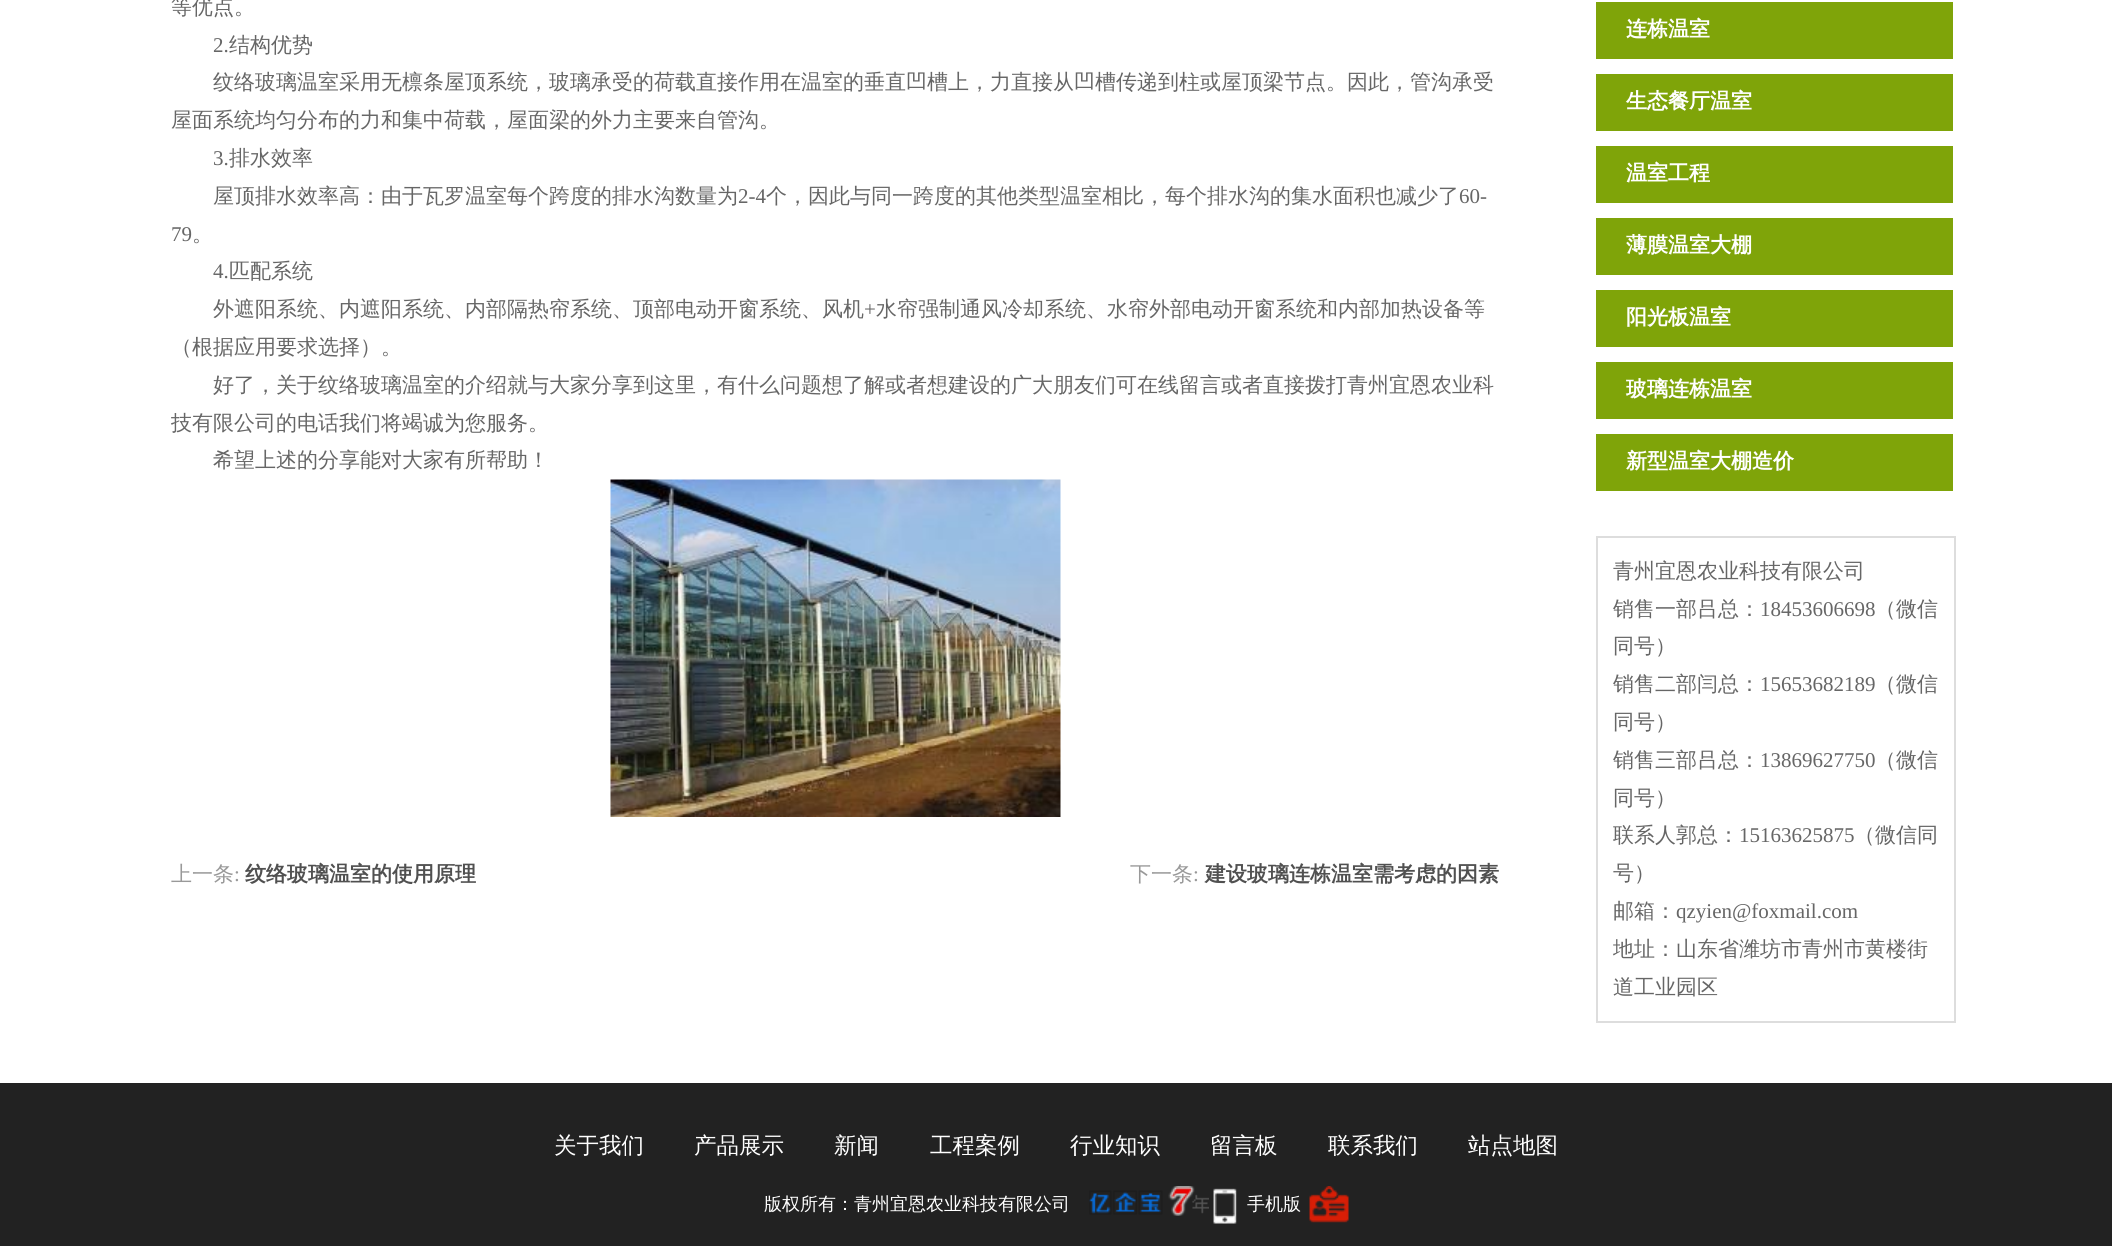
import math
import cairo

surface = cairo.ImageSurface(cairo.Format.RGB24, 2112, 1246)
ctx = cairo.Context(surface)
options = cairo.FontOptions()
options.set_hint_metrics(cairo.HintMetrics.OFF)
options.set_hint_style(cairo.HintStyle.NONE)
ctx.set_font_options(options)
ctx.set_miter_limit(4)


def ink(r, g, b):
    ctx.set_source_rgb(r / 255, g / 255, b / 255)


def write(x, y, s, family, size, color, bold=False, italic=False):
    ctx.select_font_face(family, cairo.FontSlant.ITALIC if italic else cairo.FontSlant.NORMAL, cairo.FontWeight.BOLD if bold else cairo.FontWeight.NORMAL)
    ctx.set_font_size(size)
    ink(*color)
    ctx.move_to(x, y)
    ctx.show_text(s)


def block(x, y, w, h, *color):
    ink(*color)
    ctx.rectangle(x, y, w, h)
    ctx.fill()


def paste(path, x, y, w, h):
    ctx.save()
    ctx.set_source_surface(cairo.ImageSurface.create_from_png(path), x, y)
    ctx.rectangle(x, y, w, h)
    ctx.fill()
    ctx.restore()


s1 = dict(family="WenQuanYi Zen Hei Medium", size=21, color=(102, 102, 102))
s2 = dict(family="Liberation Serif", size=21, color=(102, 102, 102))
s3 = dict(family="WenQuanYi Zen Hei Medium", size=21, color=(153, 153, 153))
s4 = dict(family="Liberation Serif", size=21, color=(153, 153, 153))
s5 = dict(family="WenQuanYi Zen Hei", size=21, color=(80, 80, 80), bold=True)
s6 = dict(family="WenQuanYi Zen Hei", size=21, color=(255, 255, 255), bold=True)
s7 = dict(family="WenQuanYi Zen Hei Medium", size=22.5, color=(255, 255, 255))
s8 = dict(family="WenQuanYi Zen Hei Medium", size=18, color=(255, 255, 255))

ink(255, 255, 255)
ctx.paint()
write(171, 14, "等优点。", **s1)
write(213, 52, "2.", **s2)
write(229, 52, "结构优势", **s1)
write(213, 89, "纹络玻璃温室采用无檩条屋顶系统，玻璃承受的荷载直接作用在温室的垂直凹槽上，力直接从凹槽传递到柱或屋顶梁节点。因此，管沟承受", **s1)
write(171, 127, "屋面系统均匀分布的力和集中荷载，屋面梁的外力主要来自管沟。", **s1)
write(213, 165, "3.", **s2)
write(229, 165, "排水效率", **s1)
write(213, 203, "屋顶排水效率高：由于瓦罗温室每个跨度的排水沟数量为", **s1)
write(738, 203, "2-4", **s2)
write(766, 203, "个，因此与同一跨度的其他类型温室相比，每个排水沟的集水面积也减少了", **s1)
write(1459, 203, "60-", **s2)
write(171, 241, "79", **s2)
write(192, 241, "。", **s1)
write(213, 278, "4.", **s2)
write(229, 278, "匹配系统", **s1)
write(213, 316, "外遮阳系统、内遮阳系统、内部隔热帘系统、顶部电动开窗系统、风机", **s1)
write(864, 316, "+", **s2)
write(876, 316, "水帘强制通风冷却系统、水帘外部电动开窗系统和内部加热设备等", **s1)
write(171, 354, "（根据应用要求选择）。", **s1)
write(213, 392, "好了，关于纹络玻璃温室的介绍就与大家分享到这里，有什么问题想了解或者想建设的广大朋友们可在线留言或者直接拨打青州宜恩农业科", **s1)
write(171, 430, "技有限公司的电话我们将竭诚为您服务。", **s1)
write(213, 467, "希望上述的分享能对大家有所帮助！", **s1)
paste("pic1.png", 610, 479, 451, 338)
write(171, 881, "上一条", **s3)
write(234, 881, ":", **s4)
write(245, 881, "纹络玻璃温室的使用原理", **s5)
write(1130, 881, "下一条", **s3)
write(1193, 881, ":", **s4)
write(1205, 881, "建设玻璃连栋温室需考虑的因素", **s5)
block(1596, 2, 357, 57, 127, 164, 9)
write(1626, 36, "连栋温室", **s6)
block(1596, 74, 357, 57, 127, 164, 9)
write(1626, 108, "生态餐厅温室", **s6)
block(1596, 146, 357, 57, 127, 164, 9)
write(1626, 180, "温室工程", **s6)
block(1596, 218, 357, 57, 127, 164, 9)
write(1626, 252, "薄膜温室大棚", **s6)
block(1596, 290, 357, 57, 127, 164, 9)
write(1626, 324, "阳光板温室", **s6)
block(1596, 362, 357, 57, 127, 164, 9)
write(1626, 396, "玻璃连栋温室", **s6)
block(1596, 434, 357, 57, 127, 164, 9)
write(1626, 468, "新型温室大棚造价", **s6)
ctx.rectangle(1597, 537, 358, 485)
ink(221, 221, 221)
ctx.stroke()
write(1613, 578, "青州宜恩农业科技有限公司", **s1)
write(1613, 616, "销售一部吕总：", **s1)
write(1760, 616, "18453606698", **s2)
write(1875, 616, "（微信", **s1)
write(1613, 653, "同号）", **s1)
write(1613, 691, "销售二部闫总：", **s1)
write(1760, 691, "15653682189", **s2)
write(1875, 691, "（微信", **s1)
write(1613, 729, "同号）", **s1)
write(1613, 767, "销售三部吕总：", **s1)
write(1760, 767, "13869627750", **s2)
write(1875, 767, "（微信", **s1)
write(1613, 805, "同号）", **s1)
write(1613, 842, "联系人郭总：", **s1)
write(1739, 842, "15163625875", **s2)
write(1854, 842, "（微信同", **s1)
write(1613, 880, "号）", **s1)
write(1613, 918, "邮箱：", **s1)
write(1676, 918, "qzyien@foxmail.com", **s2)
write(1613, 956, "地址：山东省潍坊市青州市黄楼街", **s1)
write(1613, 994, "道工业园区", **s1)
block(0, 1083, 2112, 163, 34, 34, 34)
write(554, 1153, "关于我们", **s7)
write(694, 1153, "产品展示", **s7)
write(834, 1153, "新闻", **s7)
write(930, 1153, "工程案例", **s7)
write(1070, 1153, "行业知识", **s7)
write(1210, 1153, "留言板", **s7)
write(1328, 1153, "联系我们", **s7)
write(1468, 1153, "站点地图", **s7)
write(764, 1210, "版权所有：青州宜恩农业科技有限公司", **s8)
paste("pic2.png", 1089, 1186, 120, 30)
paste("pic3.png", 1213, 1188, 24, 36)
write(1247, 1210, "手机版", **s8)
paste("pic4.png", 1309, 1186, 40, 37)
surface.write_to_png("screenshot.png")
